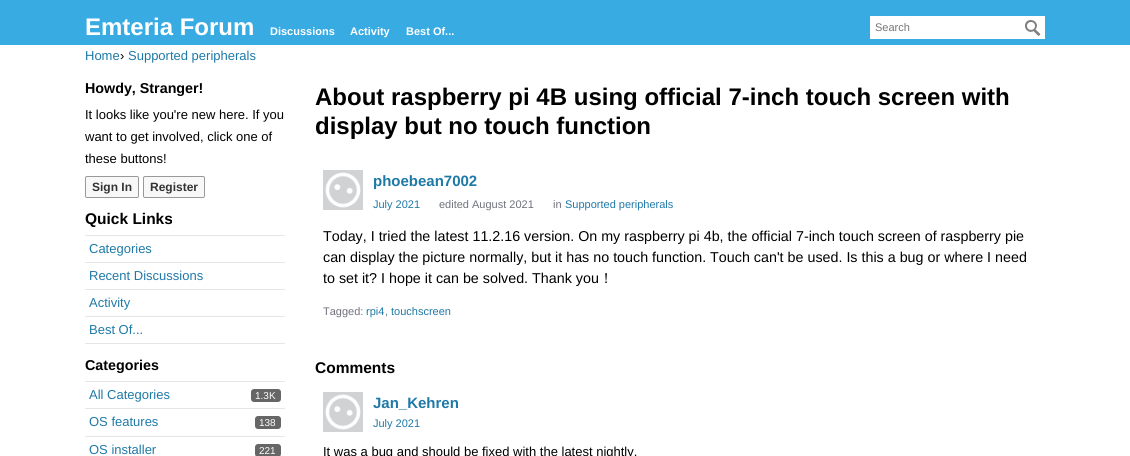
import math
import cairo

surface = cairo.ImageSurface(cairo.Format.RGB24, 1130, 456)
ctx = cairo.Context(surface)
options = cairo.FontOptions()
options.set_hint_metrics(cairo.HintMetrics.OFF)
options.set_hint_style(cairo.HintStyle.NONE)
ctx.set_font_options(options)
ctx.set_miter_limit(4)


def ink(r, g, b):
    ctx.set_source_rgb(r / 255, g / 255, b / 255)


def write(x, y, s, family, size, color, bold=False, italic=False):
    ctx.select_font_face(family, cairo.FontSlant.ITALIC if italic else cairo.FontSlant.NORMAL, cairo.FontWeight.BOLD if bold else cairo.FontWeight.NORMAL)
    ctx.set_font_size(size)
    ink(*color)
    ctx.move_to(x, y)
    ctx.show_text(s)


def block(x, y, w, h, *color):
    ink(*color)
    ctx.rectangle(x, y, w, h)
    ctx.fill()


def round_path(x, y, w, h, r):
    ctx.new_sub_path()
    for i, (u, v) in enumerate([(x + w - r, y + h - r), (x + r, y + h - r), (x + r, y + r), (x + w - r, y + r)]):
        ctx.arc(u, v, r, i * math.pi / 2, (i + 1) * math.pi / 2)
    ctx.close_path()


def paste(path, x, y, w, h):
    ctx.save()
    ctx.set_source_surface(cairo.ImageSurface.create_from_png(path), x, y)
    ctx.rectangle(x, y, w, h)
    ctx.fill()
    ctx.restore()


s1 = dict(family="Liberation Sans", size=24, color=(255, 255, 255), bold=True)
s2 = dict(family="Liberation Sans", size=11, color=(255, 255, 255), bold=True)
s3 = dict(family="Liberation Sans", size=11, color=(117, 117, 117))
s4 = dict(family="Liberation Sans", size=13, color=(30, 121, 167))
s5 = dict(family="Liberation Sans", size=13, color=(0, 0, 0))
s6 = dict(family="Liberation Sans", size=14.3, color=(0, 0, 0), bold=True)
s7 = dict(family="Liberation Sans", size=12, color=(51, 51, 51), bold=True)
s8 = dict(family="Liberation Sans", size=15.5, color=(0, 0, 0), bold=True)
s9 = dict(family="Liberation Sans", size=10, color=(255, 255, 255))
s10 = dict(family="Liberation Sans", size=24, color=(0, 0, 0), bold=True)
s11 = dict(family="Liberation Sans", size=15, color=(30, 121, 167), bold=True)
s12 = dict(family="Liberation Sans", size=11, color=(30, 121, 167))
s13 = dict(family="Liberation Sans", size=11, color=(112, 114, 124))
s14 = dict(family="Liberation Sans", size=14.3, color=(0, 0, 0))
s15 = dict(family="WenQuanYi Zen Hei Medium", size=14.3, color=(0, 0, 0))

ink(255, 255, 255)
ctx.paint()
block(0, 0, 1130, 45, 56, 171, 227)
write(85, 35, "Emteria Forum", **s1)
write(270, 35, "Discussions", **s2)
write(350, 35, "Activity", **s2)
write(406, 35, "Best Of...", **s2)
block(870, 16, 175, 23, 255, 255, 255)
write(875, 31, "Search", **s3)
paste("pic1.png", 1025, 20, 16, 16)
write(85, 60, "Home", **s4)
write(120, 60, "›", **s5)
write(128, 60, "Supported peripherals", **s4)
write(85, 93, "Howdy, Stranger!", **s6)
write(85, 119, "It looks like you're new here. If you", **s5)
write(85, 141, "want to get involved, click one of", **s5)
write(85, 163, "these buttons!", **s5)
ink(248, 248, 248)
round_path(85.5, 176.5, 53, 21, 1.5)
ctx.fill_preserve()
ink(153, 153, 153)
ctx.set_line_width(1)
ctx.stroke()
write(92, 191, "Sign In", **s7)
ink(248, 248, 248)
round_path(143.5, 176.5, 61, 21, 1.5)
ctx.fill_preserve()
ink(153, 153, 153)
ctx.stroke()
write(150, 191, "Register", **s7)
write(85, 224, "Quick Links", **s8)
block(85, 235, 200, 1, 230, 230, 230)
block(85, 262, 200, 1, 230, 230, 230)
write(89, 253, "Categories", **s4)
block(85, 289, 200, 1, 230, 230, 230)
write(89, 280, "Recent Discussions", **s4)
block(85, 316, 200, 1, 230, 230, 230)
write(89, 307, "Activity", **s4)
block(85, 343, 200, 1, 230, 230, 230)
write(89, 334, "Best Of...", **s4)
write(85, 370, "Categories", **s6)
block(85, 381, 200, 1, 230, 230, 230)
block(85, 408, 200, 1, 230, 230, 230)
write(89, 399, "All Categories", **s4)
ink(102, 102, 102)
round_path(251, 389, 30, 13, 3)
ctx.fill()
write(255, 399, "1.3K", **s9)
block(85, 436, 200, 1, 230, 230, 230)
write(89, 426, "OS features", **s4)
ink(102, 102, 102)
round_path(255, 416, 26, 13, 3)
ctx.fill()
write(259, 426, "138", **s9)
write(89, 454, "OS installer", **s4)
ink(102, 102, 102)
round_path(255, 444, 26, 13, 3)
ctx.fill()
write(259, 454, "221", **s9)
write(315, 105, "About raspberry pi 4B using official 7-inch touch screen with", **s10)
write(315, 134, "display but no touch function", **s10)
paste("pic2.png", 323, 170, 40, 40)
write(373, 186, "phoebean7002", **s11)
write(373, 208, "July 2021", **s12)
write(439, 208, "edited August 2021", **s13)
write(553, 208, "in", **s13)
write(565, 208, "Supported peripherals", **s12)
write(323, 241, "Today, I tried the latest 11.2.16 version. On my raspberry pi 4b, the official 7-inch touch screen of raspberry pie", **s14)
write(323, 262, "can display the picture normally, but it has no touch function. Touch can't be used. Is this a bug or where I need", **s14)
write(323, 283, "to set it? I hope it can be solved. Thank you", **s14)
write(599, 283, "！", **s15)
write(323, 315, "Tagged:", **s13)
write(366, 315, "rpi4", **s12)
write(385, 315, ",", **s13)
write(391, 315, "touchscreen", **s12)
write(315, 373, "Comments", **s8)
paste("pic2.png", 323, 392, 40, 40)
write(373, 408, "Jan_Kehren", **s11)
write(373, 427, "July 2021", **s12)
write(323, 456, "It was a bug and should be fixed with the latest nightly.", **s5)
surface.write_to_png("screenshot.png")
